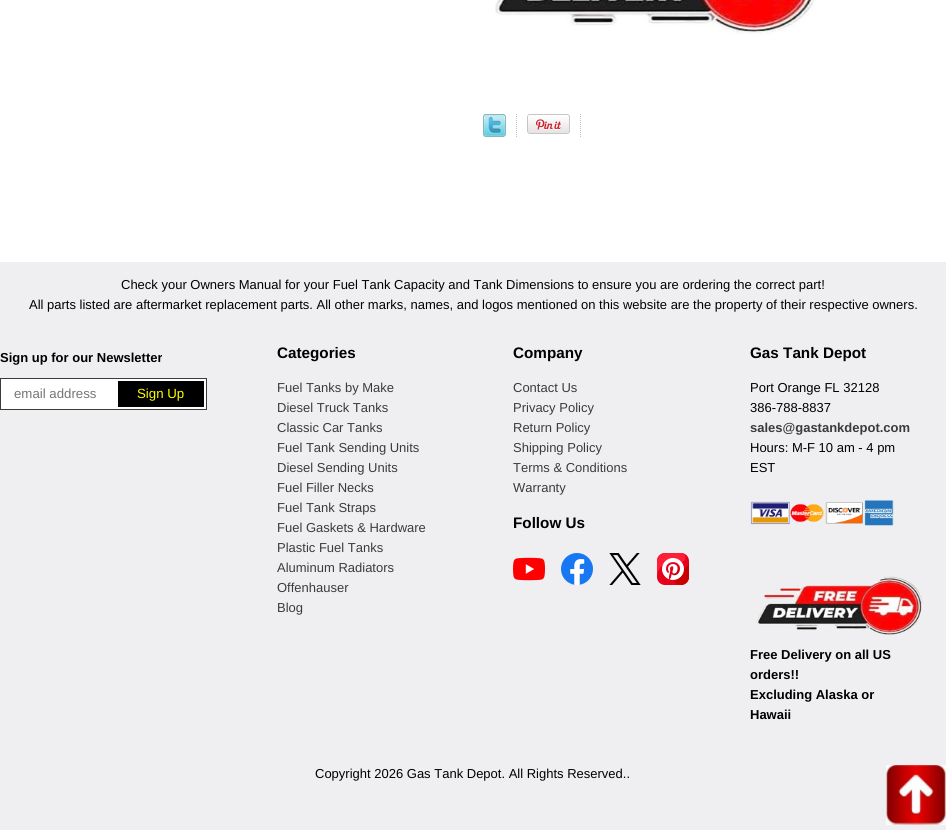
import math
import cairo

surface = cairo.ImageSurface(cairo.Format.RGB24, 946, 830)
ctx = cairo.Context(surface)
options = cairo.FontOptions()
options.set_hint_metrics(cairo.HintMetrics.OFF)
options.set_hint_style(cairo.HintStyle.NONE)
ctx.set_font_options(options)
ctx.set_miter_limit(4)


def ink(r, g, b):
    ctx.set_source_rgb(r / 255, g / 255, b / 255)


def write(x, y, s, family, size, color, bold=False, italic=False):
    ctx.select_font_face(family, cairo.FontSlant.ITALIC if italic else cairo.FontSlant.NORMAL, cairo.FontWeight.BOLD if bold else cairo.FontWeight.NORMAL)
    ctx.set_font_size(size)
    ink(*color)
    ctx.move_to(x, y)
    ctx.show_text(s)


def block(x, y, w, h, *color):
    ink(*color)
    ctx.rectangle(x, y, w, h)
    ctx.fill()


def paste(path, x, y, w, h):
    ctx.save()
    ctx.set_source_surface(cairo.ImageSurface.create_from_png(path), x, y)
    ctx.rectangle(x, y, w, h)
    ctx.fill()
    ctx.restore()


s1 = dict(family="Liberation Sans", size=13, color=(0, 0, 0))
s2 = dict(family="Liberation Sans", size=13, color=(0, 0, 0), bold=True)
s3 = dict(family="Liberation Sans", size=13.25, color=(117, 117, 117))
s4 = dict(family="Liberation Sans", size=13.25, color=(255, 255, 0))
s5 = dict(family="Liberation Sans", size=15.25, color=(0, 0, 0), bold=True)
s6 = dict(family="Liberation Sans", size=13, color=(59, 59, 59))
s7 = dict(family="Liberation Sans", size=13, color=(59, 59, 59), bold=True)

ink(255, 255, 255)
ctx.paint()
paste("pic1.png", 495, 0, 321, 35)
paste("pic2.png", 483, 114, 23, 23)
paste("pic3.png", 516, 114, 1, 23)
paste("pic4.png", 527, 114, 43, 20)
paste("pic3.png", 580, 114, 1, 23)
block(0, 262, 946, 568, 239, 239, 241)
write(121, 289, "Check your Owners Manual for your Fuel Tank Capacity and Tank Dimensions to ensure you are ordering the correct part!", **s1)
write(29, 309, "All parts listed are aftermarket replacement parts. All other marks, names, and logos mentioned on this website are the property of their respective owners.", **s1)
write(0, 362, "Sign up for our Newsletter", **s2)
block(1, 379, 115, 30, 255, 255, 255)
ctx.rectangle(0.5, 378.5, 206, 31)
ink(59, 59, 59)
ctx.set_line_width(1)
ctx.stroke()
write(14, 398, "email address", **s3)
ink(0, 0, 0)
ctx.rectangle(117, 380, 88, 28)
ctx.fill_preserve()
ink(255, 255, 255)
ctx.set_line_width(2)
ctx.stroke()
write(137, 398, "Sign Up", **s4)
write(277, 358, "Categories", **s5)
write(277, 392, "Fuel Tanks by Make", **s6)
write(277, 412, "Diesel Truck Tanks", **s6)
write(277, 432, "Classic Car Tanks", **s6)
write(277, 452, "Fuel Tank Sending Units", **s6)
write(277, 472, "Diesel Sending Units", **s6)
write(277, 492, "Fuel Filler Necks", **s6)
write(277, 512, "Fuel Tank Straps", **s6)
write(277, 532, "Fuel Gaskets & Hardware", **s6)
write(277, 552, "Plastic Fuel Tanks", **s6)
write(277, 572, "Aluminum Radiators", **s6)
write(277, 592, "Offenhauser", **s6)
write(277, 612, "Blog", **s6)
write(513, 358, "Company", **s5)
write(513, 392, "Contact Us", **s6)
write(513, 412, "Privacy Policy", **s6)
write(513, 432, "Return Policy", **s6)
write(513, 452, "Shipping Policy", **s6)
write(513, 472, "Terms & Conditions", **s6)
write(513, 492, "Warranty", **s6)
write(513, 528, "Follow Us", **s5)
paste("pic5.png", 513, 557, 32, 24)
paste("pic6.png", 561, 553, 32, 32)
paste("pic7.png", 609, 553, 32, 32)
paste("pic8.png", 657, 553, 32, 32)
write(750, 358, "Gas Tank Depot", **s5)
write(750, 392, "Port Orange FL 32128", **s1)
write(750, 412, "386-788-8837", **s1)
write(750, 432, "sales@gastankdepot.com", **s7)
write(750, 452, "Hours: M-F 10 am - 4 pm", **s1)
write(750, 472, "EST", **s1)
paste("pic9.png", 750, 500, 144, 26)
paste("pic10.png", 756, 576, 167, 59)
write(750, 659, "Free Delivery on all US", **s2)
write(750, 679, "orders!!", **s2)
write(750, 699, "Excluding Alaska or", **s2)
write(750, 719, "Hawaii", **s2)
write(315, 778, "Copyright 2026 Gas Tank Depot. All Rights Reserved..", **s1)
paste("pic11.png", 886, 765, 60, 60)
surface.write_to_png("screenshot.png")
